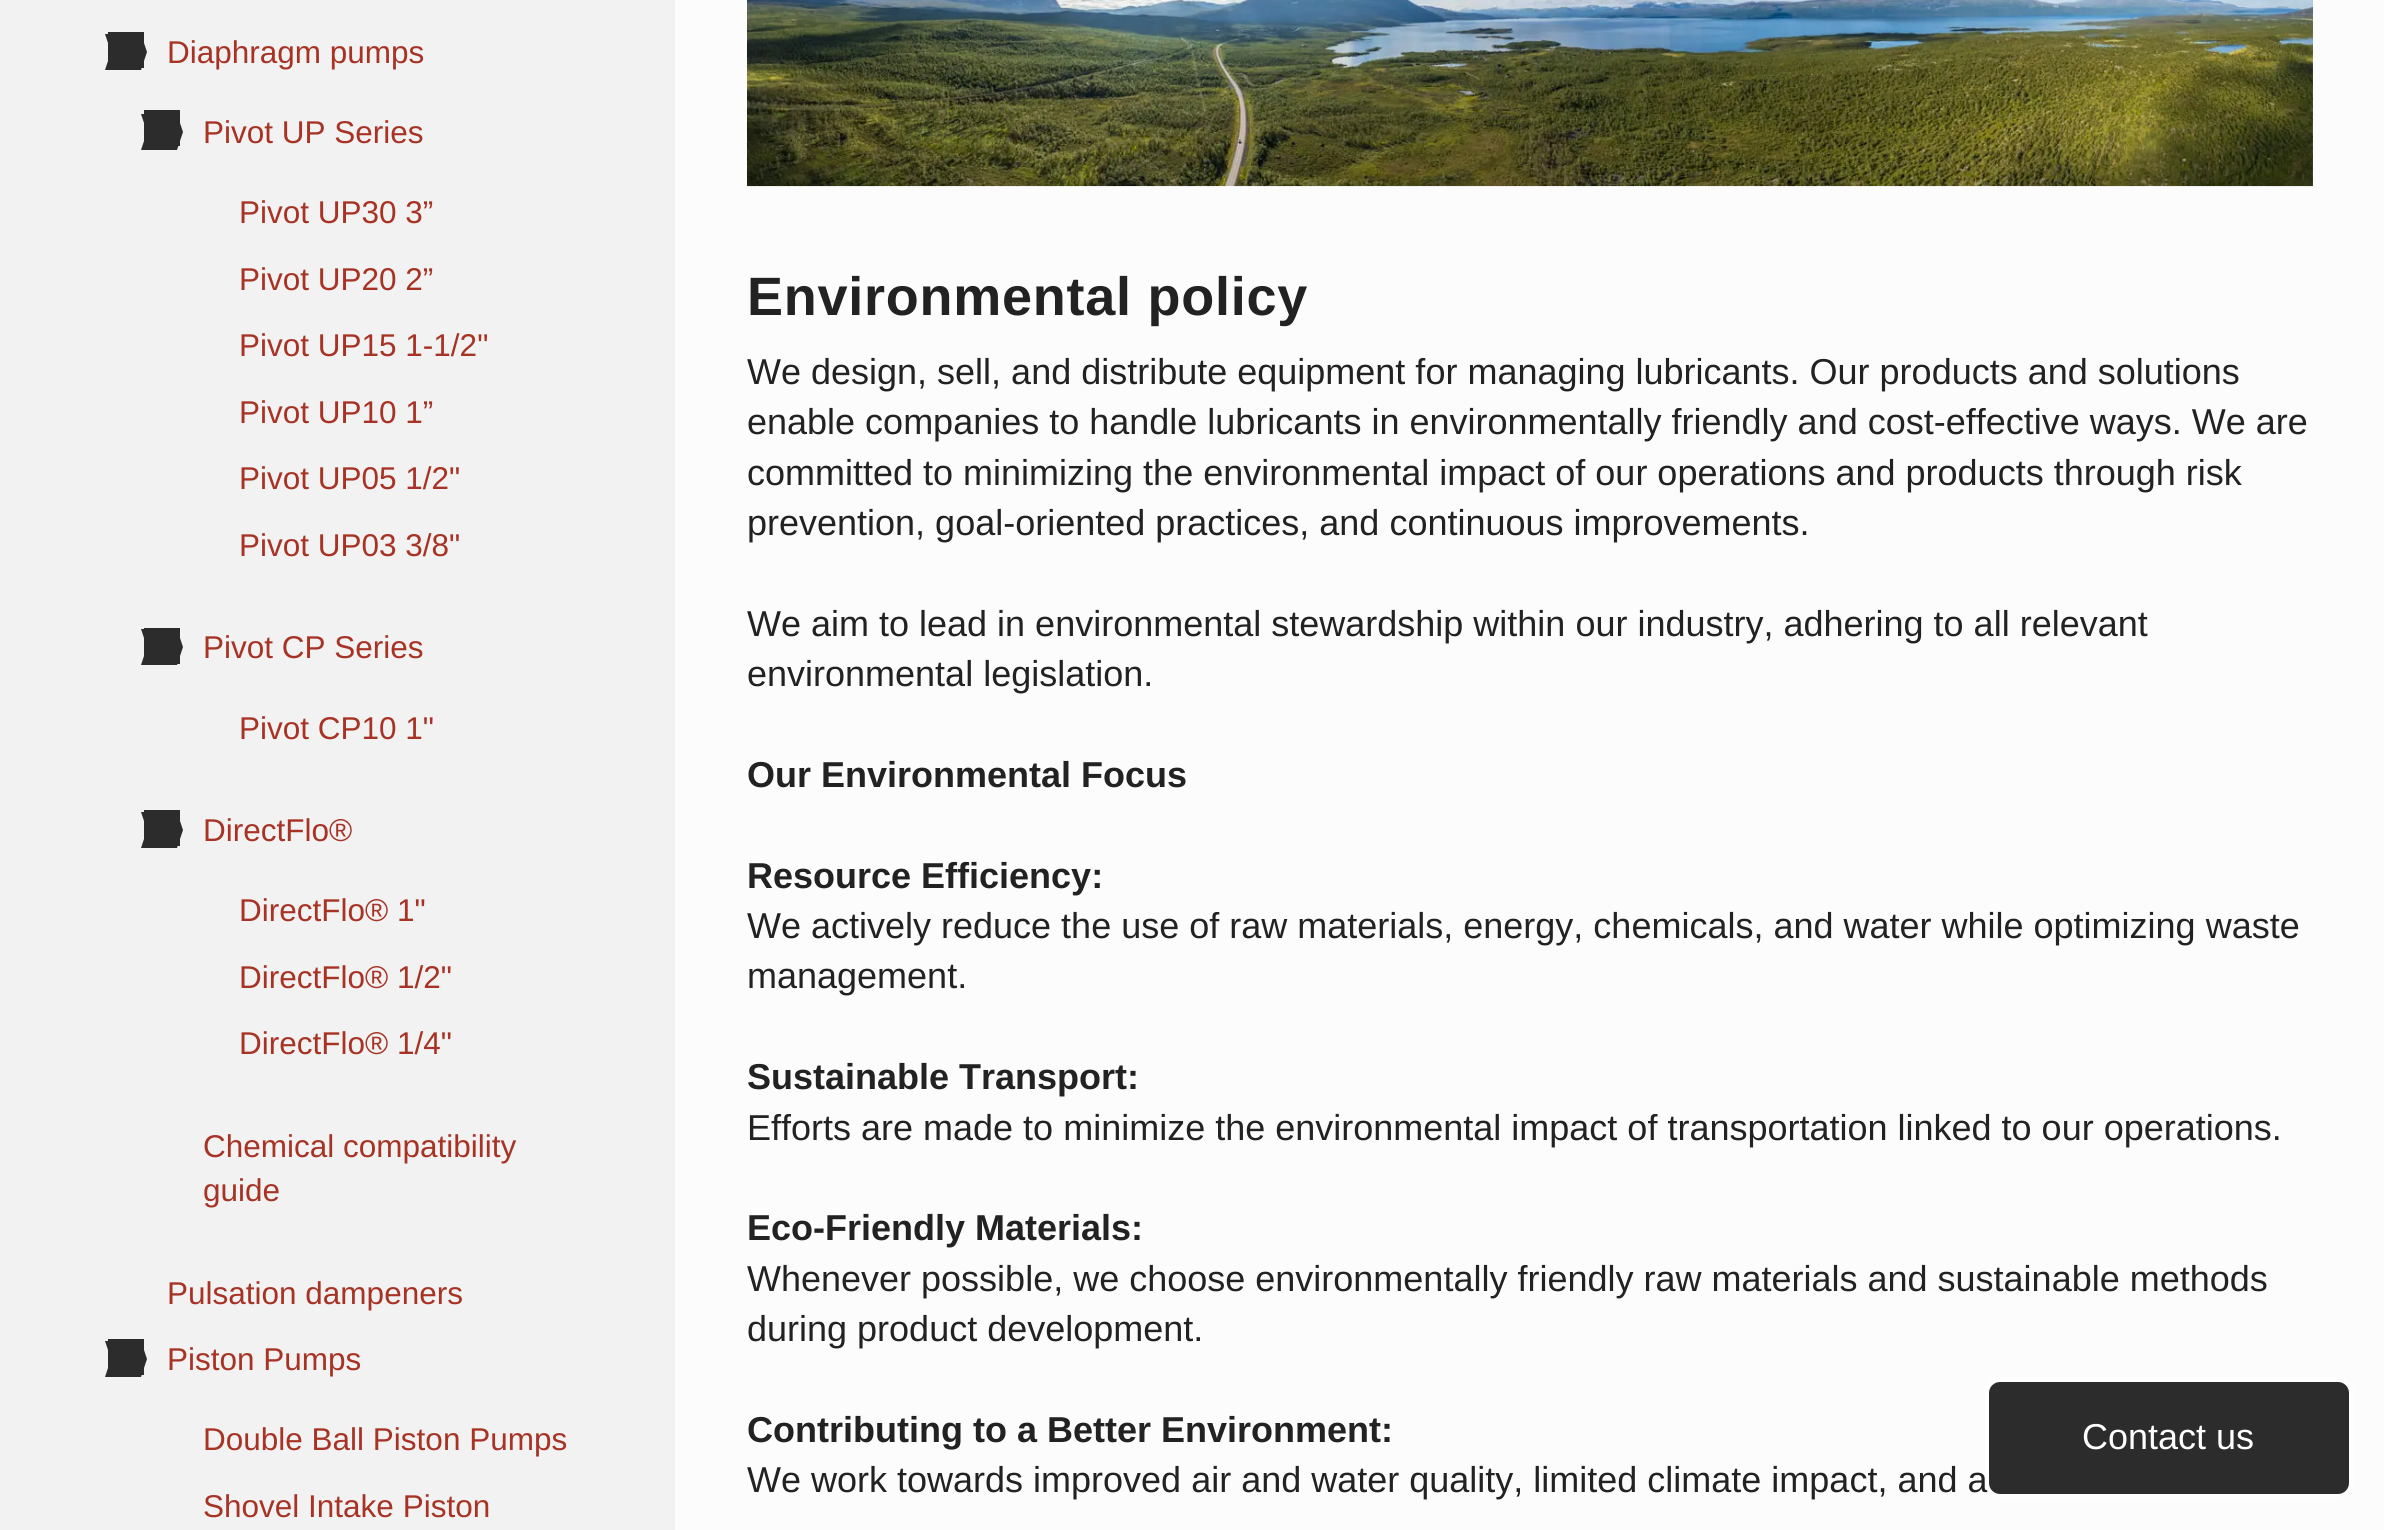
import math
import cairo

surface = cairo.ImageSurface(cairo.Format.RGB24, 2384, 1530)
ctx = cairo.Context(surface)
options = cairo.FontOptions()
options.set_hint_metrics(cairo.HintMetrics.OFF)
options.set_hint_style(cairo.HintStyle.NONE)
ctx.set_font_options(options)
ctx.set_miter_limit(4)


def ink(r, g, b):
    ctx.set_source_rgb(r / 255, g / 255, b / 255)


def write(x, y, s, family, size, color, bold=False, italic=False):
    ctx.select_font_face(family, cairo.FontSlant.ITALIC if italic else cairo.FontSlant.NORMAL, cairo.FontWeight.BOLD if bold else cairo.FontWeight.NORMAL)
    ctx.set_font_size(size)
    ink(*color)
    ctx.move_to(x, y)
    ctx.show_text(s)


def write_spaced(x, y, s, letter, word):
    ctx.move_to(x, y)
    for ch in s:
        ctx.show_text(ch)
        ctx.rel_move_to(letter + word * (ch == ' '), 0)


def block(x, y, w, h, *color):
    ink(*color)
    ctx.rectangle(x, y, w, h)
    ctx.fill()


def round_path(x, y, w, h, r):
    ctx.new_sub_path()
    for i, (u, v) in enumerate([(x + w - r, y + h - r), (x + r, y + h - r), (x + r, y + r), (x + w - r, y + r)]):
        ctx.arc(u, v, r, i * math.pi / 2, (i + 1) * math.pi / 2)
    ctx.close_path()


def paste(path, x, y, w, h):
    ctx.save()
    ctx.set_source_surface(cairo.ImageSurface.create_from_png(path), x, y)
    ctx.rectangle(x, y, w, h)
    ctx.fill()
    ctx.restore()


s1 = dict(family="Liberation Sans", size=31.5, color=(167, 51, 37))
s2 = dict(family="Liberation Sans", size=36, color=(34, 34, 34))
s3 = dict(family="Liberation Sans", size=36, color=(34, 34, 34), bold=True)
s4 = dict(family="Liberation Sans", size=36, color=(255, 255, 254))

ink(252, 252, 252)
ctx.paint()
block(0, 0, 675, 1530, 242, 242, 242)
block(108, 32, 36, 36, 44, 44, 44)
ctx.new_path()
ctx.move_to(111, 52)
ctx.line_to(147, 52)
ctx.line_to(141, 70)
ctx.line_to(105, 70)
ctx.close_path()
ctx.move_to(105, 34)
ctx.line_to(141, 34)
ctx.line_to(147, 52)
ctx.line_to(111, 52)
ctx.close_path()
ctx.fill()
write(167, 63, "Diaphragm pumps", **s1)
block(144, 110, 36, 36, 44, 44, 44)
ctx.new_path()
ctx.move_to(147, 132)
ctx.line_to(183, 132)
ctx.line_to(177, 150)
ctx.line_to(141, 150)
ctx.close_path()
ctx.move_to(141, 114)
ctx.line_to(177, 114)
ctx.line_to(183, 132)
ctx.line_to(147, 132)
ctx.close_path()
ctx.fill()
write(203, 143, "Pivot UP Series", **s1)
write(239, 223, "Pivot UP30 3”", **s1)
write(239, 290, "Pivot UP20 2”", **s1)
write(239, 356, "Pivot UP15 1-1/2\"", **s1)
write(239, 423, "Pivot UP10 1”", **s1)
write(239, 489, "Pivot UP05 1/2\"", **s1)
write(239, 556, "Pivot UP03 3/8\"", **s1)
block(144, 628, 36, 36, 44, 44, 44)
ctx.new_path()
ctx.move_to(147, 647)
ctx.line_to(183, 647)
ctx.line_to(177, 665)
ctx.line_to(141, 665)
ctx.close_path()
ctx.move_to(141, 629)
ctx.line_to(177, 629)
ctx.line_to(183, 647)
ctx.line_to(147, 647)
ctx.close_path()
ctx.fill()
write(203, 658, "Pivot CP Series", **s1)
write(239, 739, "Pivot CP10 1\"", **s1)
block(144, 810, 36, 36, 44, 44, 44)
ctx.new_path()
ctx.move_to(147, 830)
ctx.line_to(183, 830)
ctx.line_to(177, 848)
ctx.line_to(141, 848)
ctx.close_path()
ctx.move_to(141, 812)
ctx.line_to(177, 812)
ctx.line_to(183, 830)
ctx.line_to(147, 830)
ctx.close_path()
ctx.fill()
write(203, 841, "DirectFlo®", **s1)
write(239, 921, "DirectFlo® 1\"", **s1)
write(239, 988, "DirectFlo® 1/2\"", **s1)
write(239, 1054, "DirectFlo® 1/4\"", **s1)
write(203, 1157, "Chemical compatibility", **s1)
write(203, 1201, "guide", **s1)
write(167, 1304, "Pulsation dampeners", **s1)
block(108, 1339, 36, 36, 44, 44, 44)
ctx.new_path()
ctx.move_to(111, 1359)
ctx.line_to(147, 1359)
ctx.line_to(141, 1377)
ctx.line_to(105, 1377)
ctx.close_path()
ctx.move_to(105, 1341)
ctx.line_to(141, 1341)
ctx.line_to(147, 1359)
ctx.line_to(111, 1359)
ctx.close_path()
ctx.fill()
write(167, 1370, "Piston Pumps", **s1)
write(203, 1450, "Double Ball Piston Pumps", **s1)
write(203, 1517, "Shovel Intake Piston", **s1)
paste("pic1.png", 747, 0, 1566, 187)
ctx.select_font_face("Liberation Sans", cairo.FontSlant.NORMAL, cairo.FontWeight.BOLD)
ctx.set_font_size(54)
ink(34, 34, 34)
write_spaced(747, 315, "Environmental policy", 0.75, 0)
write(747, 384, "We design, sell, and distribute equipment for managing lubricants. Our products and solutions", **s2)
write(747, 434, "enable companies to handle lubricants in environmentally friendly and cost-effective ways. We are", **s2)
write(747, 485, "committed to minimizing the environmental impact of our operations and products through risk", **s2)
write(747, 535, "prevention, goal-oriented practices, and continuous improvements.", **s2)
write(747, 636, "We aim to lead in environmental stewardship within our industry, adhering to all relevant", **s2)
write(747, 686, "environmental legislation.", **s2)
write(747, 787, "Our Environmental Focus", **s3)
write(747, 888, "Resource Efficiency:", **s3)
write(747, 938, "We actively reduce the use of raw materials, energy, chemicals, and water while optimizing waste", **s2)
write(747, 988, "management.", **s2)
write(747, 1089, "Sustainable Transport:", **s3)
write(747, 1140, "Efforts are made to minimize the environmental impact of transportation linked to our operations.", **s2)
write(747, 1240, "Eco-Friendly Materials:", **s3)
write(747, 1291, "Whenever possible, we choose environmentally friendly raw materials and sustainable methods", **s2)
write(747, 1341, "during product development.", **s2)
write(747, 1442, "Contributing to a Better Environment:", **s3)
write(747, 1492, "We work towards improved air and water quality, limited climate impact, and a", **s2)
round_path(1987.5, 1379.5, 364, 117, 13.5)
ctx.set_source_rgba(1, 1, 1, 0.7)
ctx.set_line_width(5)
ctx.stroke()
ink(44, 44, 44)
round_path(1989, 1382, 360, 112, 11)
ctx.fill()
write(2082, 1449, "Contact us", **s4)
surface.write_to_png("screenshot.png")
